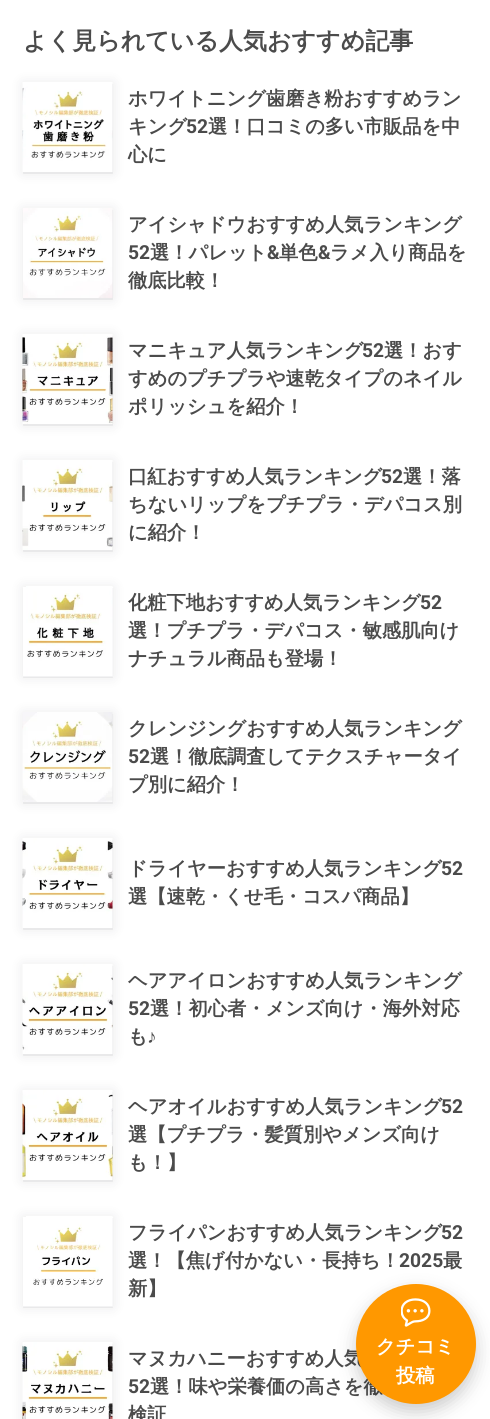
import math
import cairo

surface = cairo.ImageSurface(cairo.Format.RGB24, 490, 1419)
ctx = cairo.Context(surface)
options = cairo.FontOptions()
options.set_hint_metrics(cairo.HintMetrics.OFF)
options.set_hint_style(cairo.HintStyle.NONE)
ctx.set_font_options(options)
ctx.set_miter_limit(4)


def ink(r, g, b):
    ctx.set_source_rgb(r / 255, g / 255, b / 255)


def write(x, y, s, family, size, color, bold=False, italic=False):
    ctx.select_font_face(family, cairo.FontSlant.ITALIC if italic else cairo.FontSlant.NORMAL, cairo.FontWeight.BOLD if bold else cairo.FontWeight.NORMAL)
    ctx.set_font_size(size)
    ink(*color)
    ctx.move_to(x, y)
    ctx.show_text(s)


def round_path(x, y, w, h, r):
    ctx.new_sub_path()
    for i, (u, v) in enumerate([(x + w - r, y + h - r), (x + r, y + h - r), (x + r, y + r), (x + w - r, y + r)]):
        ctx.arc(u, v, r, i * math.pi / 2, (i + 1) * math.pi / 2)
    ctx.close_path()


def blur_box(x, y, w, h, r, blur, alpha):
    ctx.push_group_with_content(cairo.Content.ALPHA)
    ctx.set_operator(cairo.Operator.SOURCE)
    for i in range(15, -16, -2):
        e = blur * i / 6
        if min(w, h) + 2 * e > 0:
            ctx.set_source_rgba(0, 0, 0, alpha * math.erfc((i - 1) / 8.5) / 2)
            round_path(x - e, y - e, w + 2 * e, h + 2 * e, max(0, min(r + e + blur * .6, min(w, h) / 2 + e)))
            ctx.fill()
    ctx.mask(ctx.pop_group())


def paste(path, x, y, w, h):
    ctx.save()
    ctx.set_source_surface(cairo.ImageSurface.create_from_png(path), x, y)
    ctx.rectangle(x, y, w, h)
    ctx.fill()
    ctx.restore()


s1 = dict(family="WenQuanYi Zen Hei", size=24, color=(75, 75, 75), bold=True)
s2 = dict(family="WenQuanYi Zen Hei", size=19.25, color=(75, 75, 75), bold=True)
s3 = dict(family="Roboto", size=19.25, color=(75, 75, 75), bold=True)
s4 = dict(family="Liberation Sans", size=19.25, color=(75, 75, 75), bold=True)
s5 = dict(family="WenQuanYi Zen Hei", size=19.25, color=(255, 255, 255), bold=True)

ink(255, 255, 255)
ctx.paint()
write(23, 49, "よく見られている人気おすすめ記事", **s1)
ink(17, 17, 26)
blur_box(23, 83, 90, 90, 0, 6, 0.1)
ctx.set_source_rgba(0.067, 0.067, 0.102, 0.05)
ctx.new_path()
ctx.move_to(23, 172)
ctx.line_to(23, 174)
ctx.line_to(113, 174)
ctx.line_to(113, 84)
ctx.line_to(112, 84)
ctx.line_to(112, 172)
ctx.close_path()
ctx.fill()
paste("pic1.png", 22, 82, 91, 90)
write(128, 105, "ホワイトニング歯磨き粉おすすめラン", **s2)
write(128, 133, "キング", **s2)
write(186, 133, "52", **s3)
write(208, 133, "選！口コミの多い市販品を中", **s2)
write(128, 161, "心に", **s2)
ink(17, 17, 26)
blur_box(23, 209, 90, 90, 0, 6, 0.1)
ctx.set_source_rgba(0.067, 0.067, 0.102, 0.05)
ctx.new_path()
ctx.move_to(23, 298)
ctx.line_to(23, 300)
ctx.line_to(113, 300)
ctx.line_to(113, 210)
ctx.line_to(112, 210)
ctx.line_to(112, 298)
ctx.close_path()
ctx.fill()
paste("pic2.png", 23, 208, 90, 90)
write(128, 231, "アイシャドウおすすめ人気ランキング", **s2)
write(128, 259, "52", **s3)
write(150, 259, "選！パレット", **s2)
write(267, 259, "&", **s3)
write(279, 259, "単色", **s2)
write(318, 259, "&", **s3)
write(330, 259, "ラメ入り商品を", **s2)
write(128, 287, "徹底比較！", **s2)
ink(17, 17, 26)
blur_box(23, 335, 90, 90, 0, 6, 0.1)
ctx.set_source_rgba(0.067, 0.067, 0.102, 0.05)
ctx.new_path()
ctx.move_to(23, 424)
ctx.line_to(23, 426)
ctx.line_to(113, 426)
ctx.line_to(113, 336)
ctx.line_to(112, 336)
ctx.line_to(112, 424)
ctx.close_path()
ctx.fill()
paste("pic3.png", 22, 334, 91, 90)
write(128, 357, "マニキュア人気ランキング", **s2)
write(362, 357, "52", **s3)
write(384, 357, "選！おす", **s2)
write(128, 385, "すめのプチプラや速乾タイプのネイル", **s2)
write(128, 413, "ポリッシュを紹介！", **s2)
ink(17, 17, 26)
blur_box(23, 461, 90, 90, 0, 6, 0.1)
ctx.set_source_rgba(0.067, 0.067, 0.102, 0.05)
ctx.new_path()
ctx.move_to(23, 550)
ctx.line_to(23, 552)
ctx.line_to(113, 552)
ctx.line_to(113, 462)
ctx.line_to(112, 462)
ctx.line_to(112, 550)
ctx.close_path()
ctx.fill()
paste("pic4.png", 22, 460, 91, 90)
write(128, 483, "口紅おすすめ人気ランキング", **s2)
write(381, 483, "52", **s3)
write(403, 483, "選！落", **s2)
write(128, 511, "ちないリップをプチプラ・デパコス別", **s2)
write(128, 539, "に紹介！", **s2)
ctx.save()
ctx.set_fill_rule(cairo.FillRule.EVEN_ODD)
ctx.new_path()
ctx.move_to(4, 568)
ctx.line_to(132, 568)
ctx.line_to(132, 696)
ctx.line_to(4, 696)
ctx.close_path()
ctx.move_to(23, 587)
ctx.line_to(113, 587)
ctx.line_to(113, 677)
ctx.line_to(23, 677)
ctx.close_path()
ctx.clip()
ink(17, 17, 26)
blur_box(23, 587, 90, 90, 0, 6, 0.1)
ctx.restore()
ctx.set_source_rgba(0.067, 0.067, 0.102, 0.05)
ctx.new_path()
ctx.move_to(23, 676)
ctx.line_to(23, 678)
ctx.line_to(113, 678)
ctx.line_to(113, 588)
ctx.line_to(112, 588)
ctx.line_to(112, 676)
ctx.close_path()
ctx.fill()
paste("pic5.png", 26, 586, 87, 90)
write(128, 609, "化粧下地おすすめ人気ランキング", **s2)
write(420, 609, "52", **s3)
write(128, 637, "選！プチプラ・デパコス・敏感肌向け", **s2)
write(128, 665, "ナチュラル商品も登場！", **s2)
ink(17, 17, 26)
blur_box(23, 713, 90, 90, 0, 6, 0.1)
ctx.set_source_rgba(0.067, 0.067, 0.102, 0.05)
ctx.new_path()
ctx.move_to(23, 802)
ctx.line_to(23, 804)
ctx.line_to(113, 804)
ctx.line_to(113, 714)
ctx.line_to(112, 714)
ctx.line_to(112, 802)
ctx.close_path()
ctx.fill()
paste("pic6.png", 22, 712, 91, 90)
write(128, 735, "クレンジングおすすめ人気ランキング", **s2)
write(128, 763, "52", **s3)
write(150, 763, "選！徹底調査してテクスチャータイ", **s2)
write(128, 791, "プ別に紹介！", **s2)
ink(17, 17, 26)
blur_box(23, 839, 90, 90, 0, 6, 0.1)
ctx.set_source_rgba(0.067, 0.067, 0.102, 0.05)
ctx.new_path()
ctx.move_to(23, 928)
ctx.line_to(23, 930)
ctx.line_to(113, 930)
ctx.line_to(113, 840)
ctx.line_to(112, 840)
ctx.line_to(112, 928)
ctx.close_path()
ctx.fill()
paste("pic7.png", 22, 838, 91, 90)
write(128, 875, "ドライヤーおすすめ人気ランキング", **s2)
write(441, 875, "52", **s3)
write(128, 903, "選【速乾・くせ毛・コスパ商品】", **s2)
ink(17, 17, 26)
blur_box(23, 965, 90, 90, 0, 6, 0.1)
ctx.set_source_rgba(0.067, 0.067, 0.102, 0.05)
ctx.new_path()
ctx.move_to(23, 1054)
ctx.line_to(23, 1056)
ctx.line_to(113, 1056)
ctx.line_to(113, 966)
ctx.line_to(112, 966)
ctx.line_to(112, 1054)
ctx.close_path()
ctx.fill()
paste("pic8.png", 22, 964, 91, 90)
write(128, 987, "ヘアアイロンおすすめ人気ランキング", **s2)
write(128, 1015, "52", **s3)
write(150, 1015, "選！初心者・メンズ向け・海外対応", **s2)
write(128, 1043, "も", **s2)
write(147, 1043, "♪", **s4)
ink(17, 17, 26)
blur_box(23, 1091, 90, 90, 0, 6, 0.1)
ctx.set_source_rgba(0.067, 0.067, 0.102, 0.05)
ctx.new_path()
ctx.move_to(23, 1180)
ctx.line_to(23, 1182)
ctx.line_to(113, 1182)
ctx.line_to(113, 1092)
ctx.line_to(112, 1092)
ctx.line_to(112, 1180)
ctx.close_path()
ctx.fill()
paste("pic9.png", 22, 1090, 91, 90)
write(128, 1113, "ヘアオイルおすすめ人気ランキング", **s2)
write(441, 1113, "52", **s3)
write(128, 1141, "選【プチプラ・髪質別やメンズ向け", **s2)
write(128, 1169, "も！】", **s2)
ctx.save()
ctx.set_fill_rule(cairo.FillRule.EVEN_ODD)
ctx.new_path()
ctx.move_to(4, 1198)
ctx.line_to(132, 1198)
ctx.line_to(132, 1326)
ctx.line_to(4, 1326)
ctx.close_path()
ctx.move_to(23, 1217)
ctx.line_to(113, 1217)
ctx.line_to(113, 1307)
ctx.line_to(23, 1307)
ctx.close_path()
ctx.clip()
ink(17, 17, 26)
blur_box(23, 1217, 90, 90, 0, 6, 0.1)
ctx.restore()
ctx.set_source_rgba(0.067, 0.067, 0.102, 0.05)
ctx.new_path()
ctx.move_to(23, 1306)
ctx.line_to(23, 1308)
ctx.line_to(113, 1308)
ctx.line_to(113, 1218)
ctx.line_to(112, 1218)
ctx.line_to(112, 1306)
ctx.close_path()
ctx.fill()
paste("pic10.png", 26, 1216, 87, 90)
write(128, 1239, "フライパンおすすめ人気ランキング", **s2)
write(441, 1239, "52", **s3)
write(128, 1267, "選！【焦げ付かない・長持ち！", **s2)
write(399, 1267, "2025", **s3)
write(443, 1267, "最", **s2)
write(128, 1295, "新】", **s2)
ink(17, 17, 26)
blur_box(23, 1343, 90, 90, 0, 6, 0.1)
ctx.set_source_rgba(0.067, 0.067, 0.102, 0.05)
ctx.new_path()
ctx.move_to(23, 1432)
ctx.line_to(23, 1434)
ctx.line_to(113, 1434)
ctx.line_to(113, 1344)
ctx.line_to(112, 1344)
ctx.line_to(112, 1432)
ctx.close_path()
ctx.fill()
paste("pic11.png", 22, 1342, 91, 77)
write(128, 1365, "マヌカハニーおすすめ人気", **s2)
write(128, 1393, "52", **s3)
write(150, 1393, "選！味や栄養価の高さを徹", **s2)
write(128, 1421, "検証", **s2)
ink(0, 0, 0)
blur_box(356, 1292, 120, 120, 60, 9, 0.2)
ink(255, 152, 0)
ctx.arc(416, 1344, 60, 0, 2 * math.pi)
ctx.fill()
paste("pic12.png", 401, 1298, 30, 29)
write(376, 1353, "クチコミ", **s5)
write(396, 1382, "投稿", **s5)
surface.write_to_png("screenshot.png")
